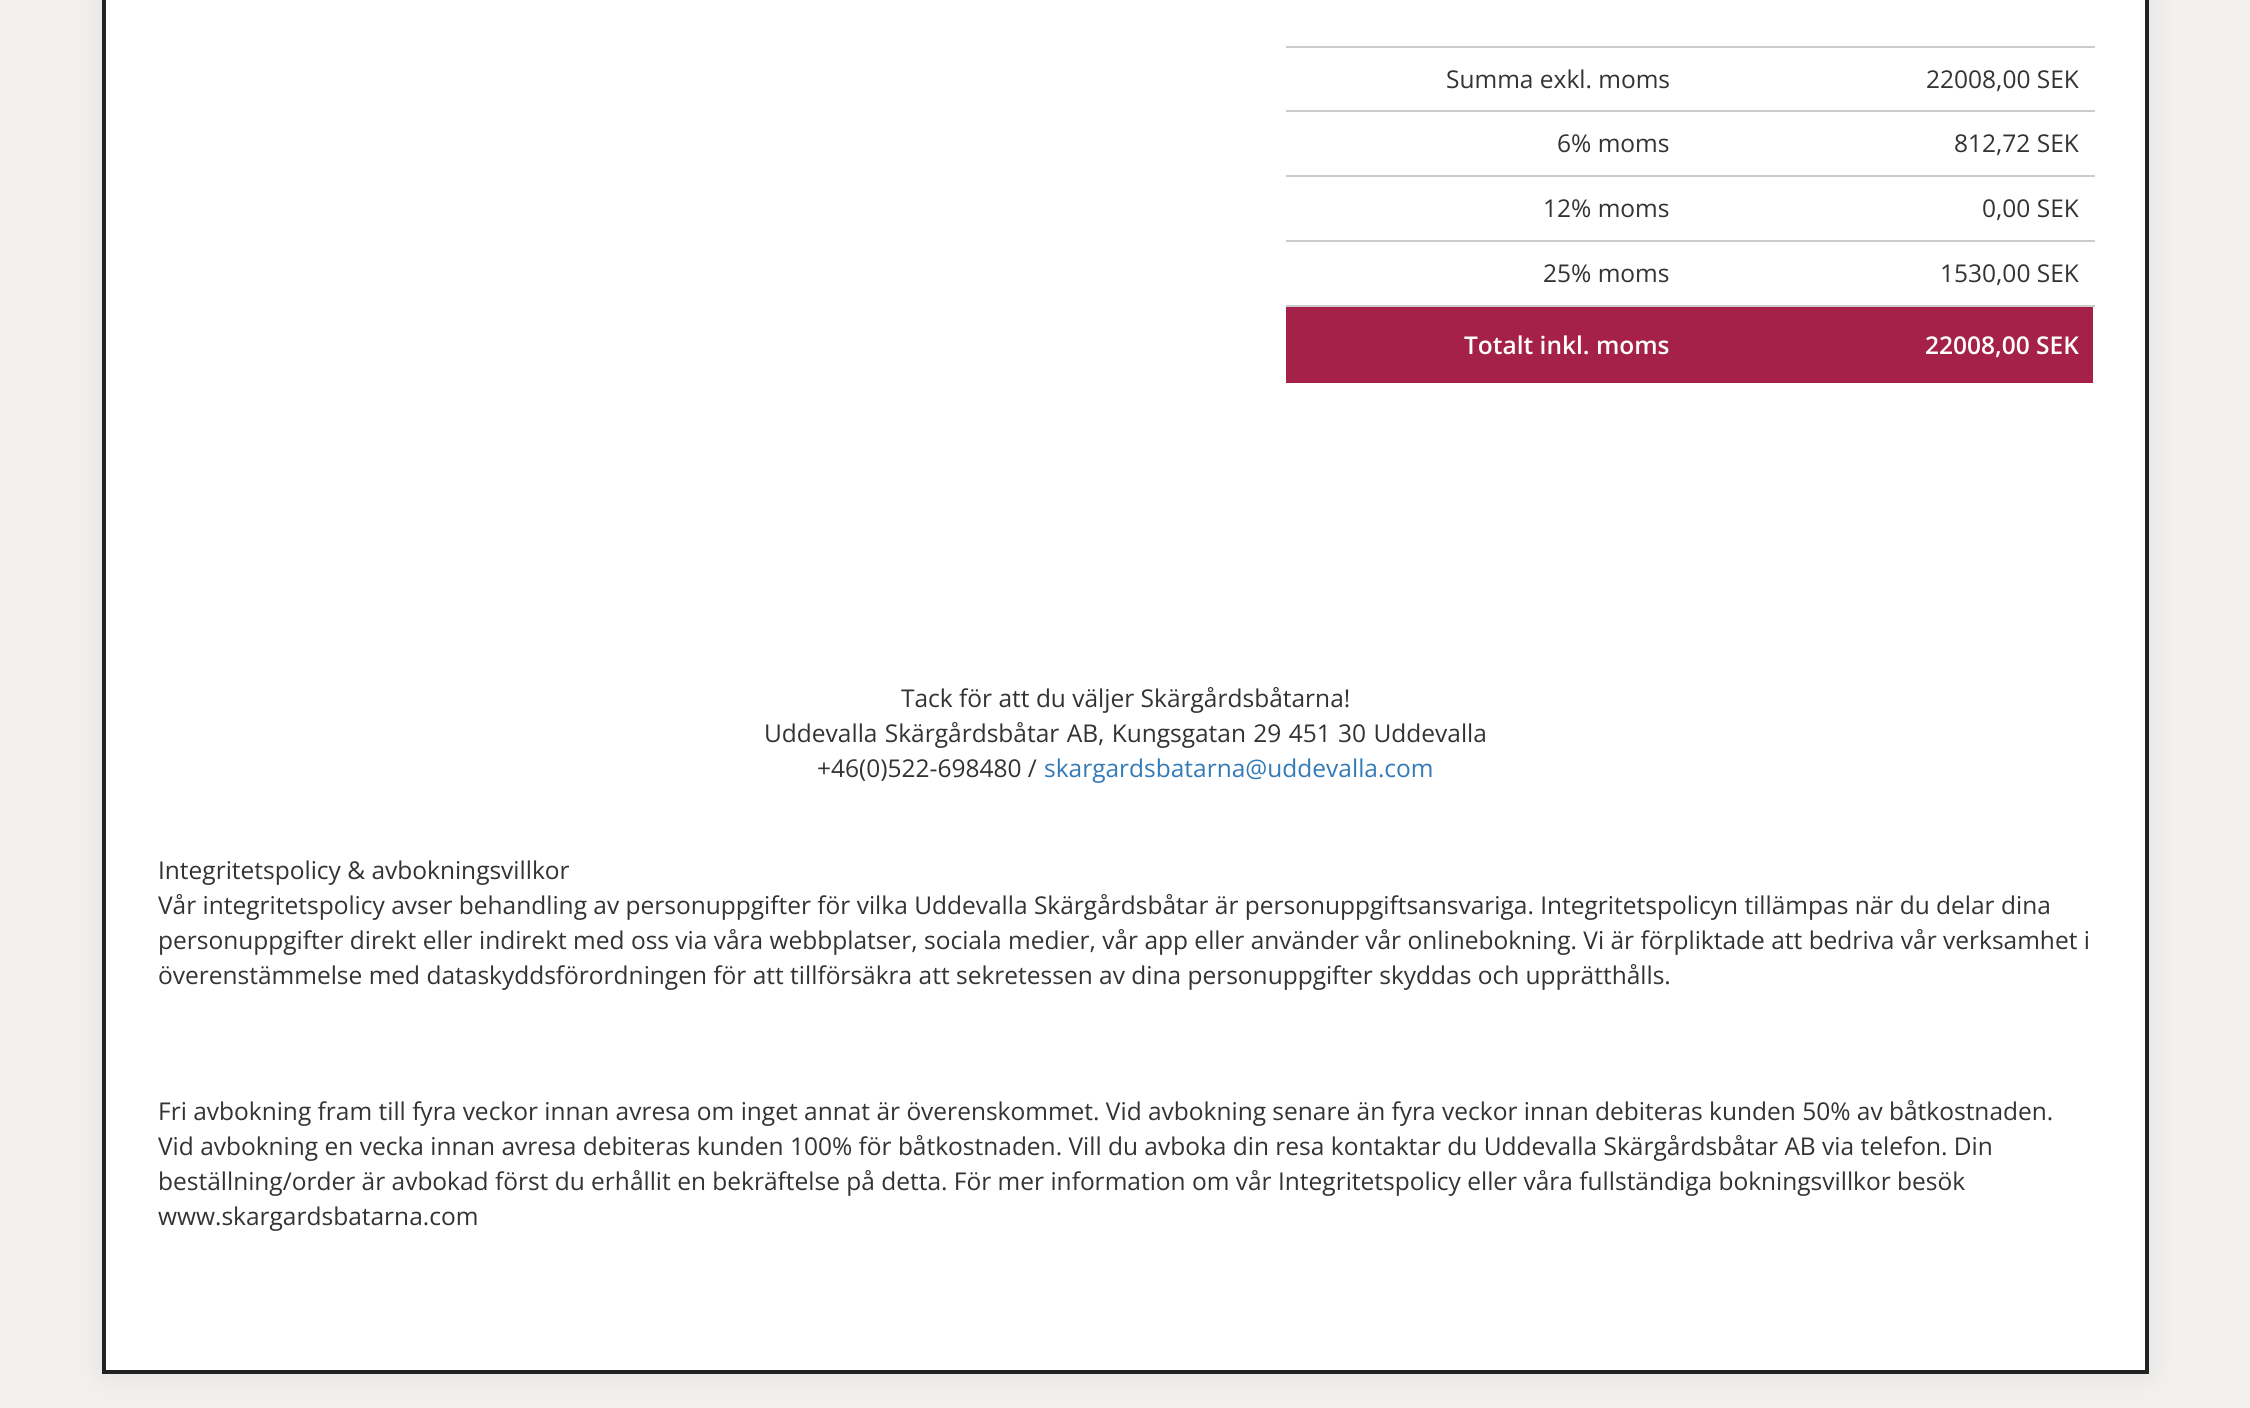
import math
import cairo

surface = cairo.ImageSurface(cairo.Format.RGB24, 2250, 1408)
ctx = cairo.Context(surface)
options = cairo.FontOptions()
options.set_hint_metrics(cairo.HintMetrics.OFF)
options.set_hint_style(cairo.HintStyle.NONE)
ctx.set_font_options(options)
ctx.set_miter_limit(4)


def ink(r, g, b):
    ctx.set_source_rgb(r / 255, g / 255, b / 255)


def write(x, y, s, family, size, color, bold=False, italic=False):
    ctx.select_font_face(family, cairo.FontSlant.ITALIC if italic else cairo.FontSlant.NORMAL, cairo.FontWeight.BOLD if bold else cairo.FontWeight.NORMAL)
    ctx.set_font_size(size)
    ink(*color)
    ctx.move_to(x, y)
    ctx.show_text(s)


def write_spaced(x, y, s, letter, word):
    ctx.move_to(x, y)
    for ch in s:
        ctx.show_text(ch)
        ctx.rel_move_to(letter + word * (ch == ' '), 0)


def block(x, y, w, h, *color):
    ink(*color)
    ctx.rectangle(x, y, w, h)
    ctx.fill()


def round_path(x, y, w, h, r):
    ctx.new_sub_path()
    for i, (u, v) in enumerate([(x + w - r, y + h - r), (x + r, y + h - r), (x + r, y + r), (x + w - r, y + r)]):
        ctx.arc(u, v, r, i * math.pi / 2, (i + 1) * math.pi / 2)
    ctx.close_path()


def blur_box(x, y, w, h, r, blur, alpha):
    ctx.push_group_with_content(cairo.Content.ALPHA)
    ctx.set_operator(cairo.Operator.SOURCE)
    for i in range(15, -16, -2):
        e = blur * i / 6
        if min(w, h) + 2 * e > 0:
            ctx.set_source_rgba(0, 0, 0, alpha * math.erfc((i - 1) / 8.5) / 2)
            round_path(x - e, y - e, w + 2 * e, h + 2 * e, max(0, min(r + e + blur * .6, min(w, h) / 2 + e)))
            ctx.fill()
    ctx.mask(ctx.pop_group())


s1 = dict(family="Open Sans", size=24.5, color=(51, 51, 51))
s2 = dict(family="Open Sans SemiBold", size=24.5, color=(255, 255, 255))
s3 = dict(family="Open Sans", size=24.5, color=(51, 122, 183))

ink(242, 241, 239)
ctx.paint()
ink(0, 0, 0)
blur_box(102, -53, 2047, 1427, 0, 17.5, 0.07)
ink(255, 255, 255)
ctx.rectangle(104, -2, 2043, 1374)
ctx.fill_preserve()
ink(34, 34, 34)
ctx.set_line_width(4)
ctx.stroke()
write(1446, 88, "Summa exkl. moms", **s1)
block(1286, 46, 809, 2, 204, 204, 204)
write(1926, 88, "22008,00 SEK", **s1)
write(1557, 152, "6% moms", **s1)
block(1286, 110, 809, 2, 204, 204, 204)
write(1954, 152, "812,72 SEK", **s1)
write(1543, 217, "12% moms", **s1)
block(1286, 175, 809, 2, 204, 204, 204)
write(1982, 217, "0,00 SEK", **s1)
write(1543, 282, "25% moms", **s1)
block(1286, 240, 809, 2, 204, 204, 204)
write(1940, 282, "1530,00 SEK", **s1)
block(1286, 307, 807, 76, 166, 33, 74)
write(1464, 354, "Totalt inkl. moms", **s2)
block(1286, 305, 809, 2, 204, 204, 204)
write(1925, 354, "22008,00 SEK", **s2)
write(901, 707, "Tack för att du väljer Skärgårdsbåtarna!", **s1)
write_spaced(764, 742, "Uddevalla Skärgårdsbåtar AB, Kungsgatan 29 451 30 Uddevalla", 0, 1)
write(817, 777, "+46(0)522-698480 /", **s1)
write(1044, 777, "skargardsbatarna@uddevalla.com", **s3)
write(158, 879, "Integritetspolicy & avbokningsvillkor", **s1)
write(158, 914, "Vår integritetspolicy avser behandling av personuppgifter för vilka Uddevalla Skärgårdsbåtar är personuppgiftsansvariga. Integritetspolicyn tillämpas när du delar dina", **s1)
write(158, 949, "personuppgifter direkt eller indirekt med oss via våra webbplatser, sociala medier, vår app eller använder vår onlinebokning. Vi är förpliktade att bedriva vår verksamhet i", **s1)
write(158, 984, "överenstämmelse med dataskyddsförordningen för att tillförsäkra att sekretessen av dina personuppgifter skyddas och upprätthålls.", **s1)
write(158, 1120, "Fri avbokning fram till fyra veckor innan avresa om inget annat är överenskommet. Vid avbokning senare än fyra veckor innan debiteras kunden 50% av båtkostnaden.", **s1)
write(158, 1155, "Vid avbokning en vecka innan avresa debiteras kunden 100% för båtkostnaden. Vill du avboka din resa kontaktar du Uddevalla Skärgårdsbåtar AB via telefon. Din", **s1)
write(158, 1190, "beställning/order är avbokad först du erhållit en bekräftelse på detta. För mer information om vår Integritetspolicy eller våra fullständiga bokningsvillkor besök", **s1)
write(158, 1225, "www.skargardsbatarna.com", **s1)
surface.write_to_png("screenshot.png")
